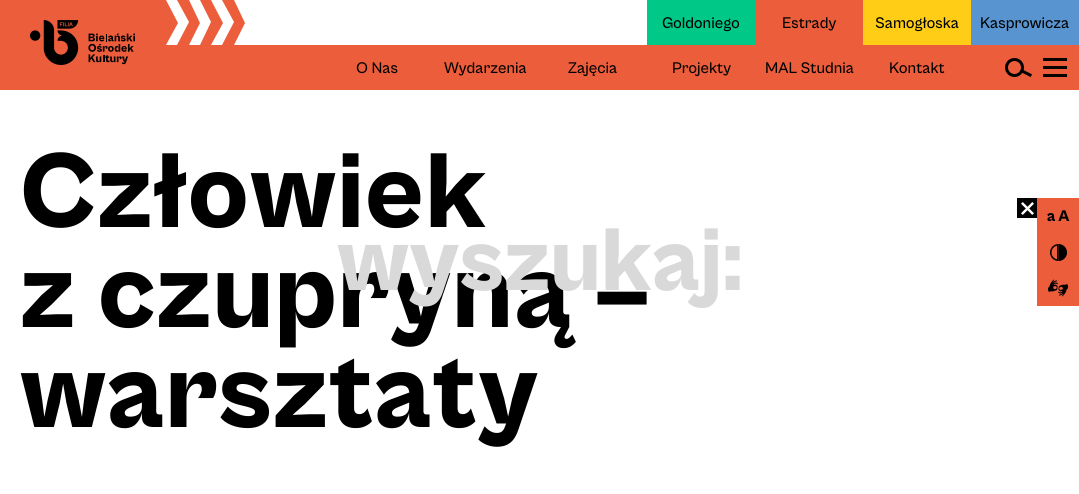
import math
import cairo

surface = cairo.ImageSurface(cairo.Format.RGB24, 1079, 494)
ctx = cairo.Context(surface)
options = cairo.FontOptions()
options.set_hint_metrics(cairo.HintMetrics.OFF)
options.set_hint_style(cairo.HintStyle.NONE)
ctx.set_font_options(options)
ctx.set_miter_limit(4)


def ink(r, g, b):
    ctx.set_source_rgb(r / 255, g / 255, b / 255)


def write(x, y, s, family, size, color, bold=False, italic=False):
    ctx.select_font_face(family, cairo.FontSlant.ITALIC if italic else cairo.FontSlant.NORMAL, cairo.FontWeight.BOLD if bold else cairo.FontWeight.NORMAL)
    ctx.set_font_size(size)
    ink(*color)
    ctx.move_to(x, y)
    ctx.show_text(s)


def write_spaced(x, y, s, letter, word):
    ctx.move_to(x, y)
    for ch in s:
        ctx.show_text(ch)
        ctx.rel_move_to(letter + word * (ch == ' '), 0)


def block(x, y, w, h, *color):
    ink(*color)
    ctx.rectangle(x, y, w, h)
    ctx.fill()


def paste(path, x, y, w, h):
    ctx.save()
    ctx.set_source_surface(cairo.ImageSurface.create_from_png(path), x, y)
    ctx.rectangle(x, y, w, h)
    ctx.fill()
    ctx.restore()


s1 = dict(family="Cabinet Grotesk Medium", size=16, color=(0, 0, 0))
s2 = dict(family="Cabinet Grotesk ExtraBold", size=16, color=(0, 0, 0))
s3 = dict(family="Cabinet Grotesk ExtraBold", size=92, color=(217, 217, 217))

ink(255, 255, 255)
ctx.paint()
block(0, 0, 155, 90, 236, 93, 59)
paste("pic1.png", 30, 20, 105, 45)
ctx.new_path()
ctx.move_to(166, 0)
ctx.line_to(155, 0)
ctx.line_to(155, 45)
ctx.line_to(166, 45)
ctx.line_to(178, 23)
ctx.close_path()
ctx.fill()
ctx.new_path()
ctx.move_to(189, 0)
ctx.line_to(177, 0)
ctx.line_to(189, 22)
ctx.line_to(177, 45)
ctx.line_to(189, 45)
ctx.line_to(200, 23)
ctx.close_path()
ctx.move_to(211, 0)
ctx.line_to(200, 0)
ctx.line_to(211, 22)
ctx.line_to(200, 45)
ctx.line_to(211, 45)
ctx.line_to(223, 23)
ctx.close_path()
ctx.fill()
ctx.new_path()
ctx.move_to(234, 0)
ctx.line_to(222, 0)
ctx.line_to(234, 22)
ctx.line_to(222, 45)
ctx.line_to(234, 45)
ctx.line_to(245, 23)
ctx.close_path()
ctx.fill()
block(647, 0, 108, 45, 0, 200, 134)
write(662, 28, "Goldoniego", **s1)
block(755, 0, 108, 45, 236, 93, 59)
write(782, 28, "Estrady", **s1)
block(863, 0, 108, 45, 255, 205, 22)
write(875, 28, "Samogłoska", **s1)
block(971, 0, 108, 45, 88, 149, 208)
write(980, 28, "Kasprowicza", **s1)
block(155, 45, 924, 45, 236, 93, 59)
write(356, 73, "O Nas", **s1)
write(444, 73, "Wydarzenia", **s1)
write(568, 73, "Zajęcia", **s1)
write(672, 73, "Projekty", **s1)
write(765, 73, "MAL Studnia", **s1)
write(889, 73, "Kontakt", **s1)
paste("pic2.png", 1005, 58, 27, 19)
block(1043, 66, 24, 3, 0, 0, 0)
block(1043, 58, 24, 3, 0, 0, 0)
block(1043, 74, 24, 3, 0, 0, 0)
ctx.select_font_face("Cabinet Grotesk ExtraBold")
ctx.set_font_size(110)
write_spaced(20, 227, "Człowiek", 1.1, 0)
write_spaced(20, 327, "z czupryną –", 1.1, 0)
write_spaced(20, 427, "warsztaty", 1.1, 0)
block(1017, 198, 20, 20, 0, 0, 0)
paste("pic3.png", 1021, 202, 13, 13)
block(1037, 198, 42, 108, 236, 93, 59)
write(1047, 221, "a A", **s2)
paste("pic4.png", 1050, 244, 17, 17)
paste("pic5.png", 1048, 279, 21, 18)
write(337, 290, "wyszukaj:", **s3)
surface.write_to_png("screenshot.png")
